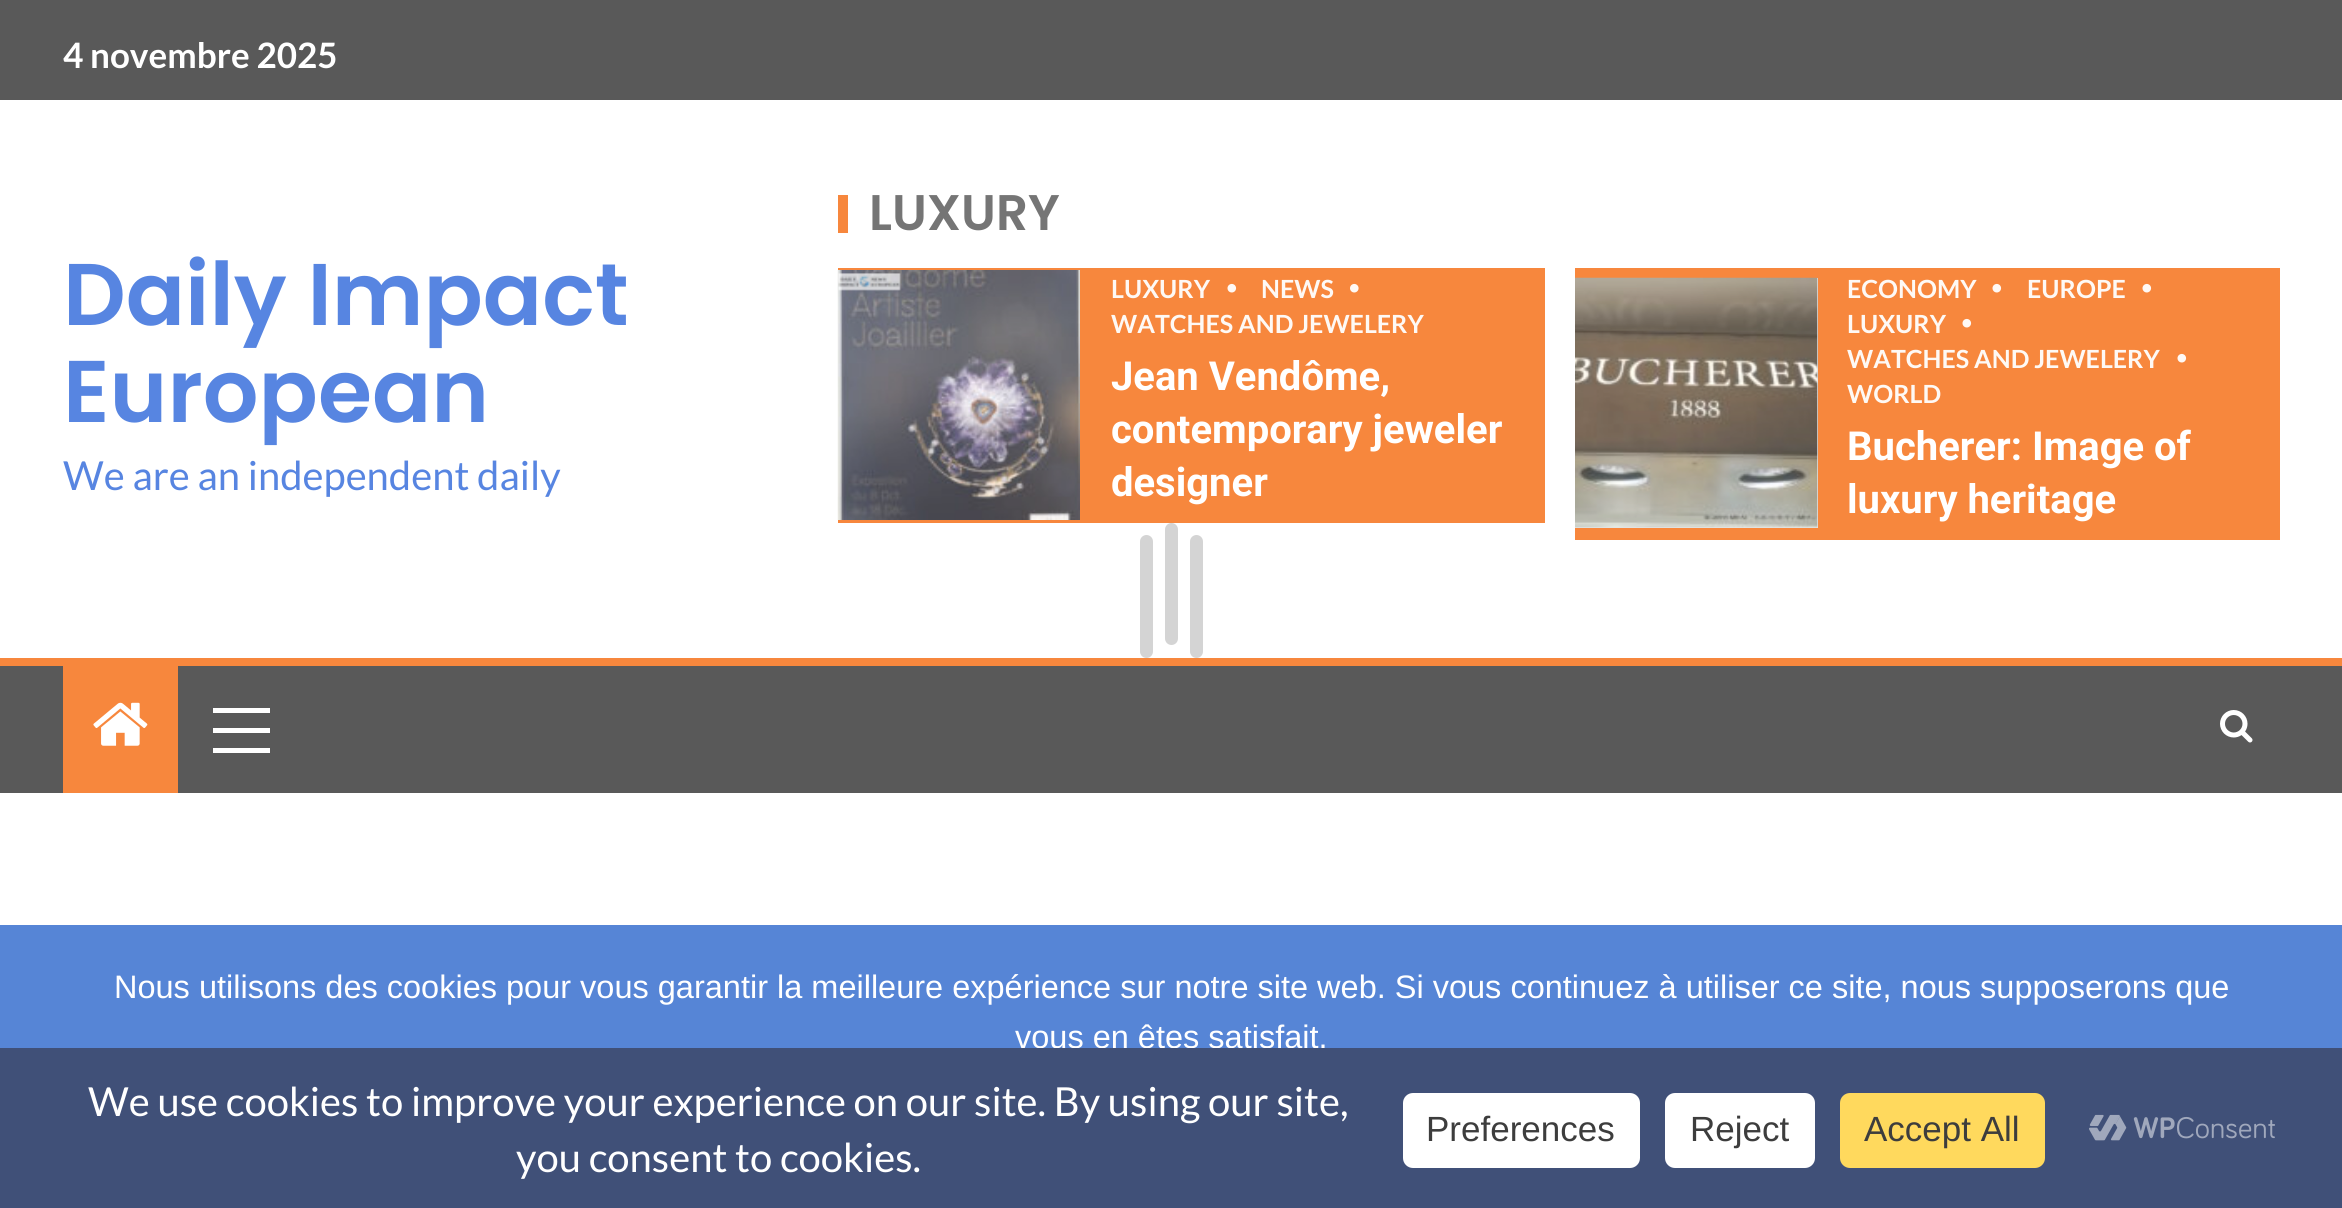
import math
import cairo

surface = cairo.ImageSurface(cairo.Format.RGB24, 2342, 1208)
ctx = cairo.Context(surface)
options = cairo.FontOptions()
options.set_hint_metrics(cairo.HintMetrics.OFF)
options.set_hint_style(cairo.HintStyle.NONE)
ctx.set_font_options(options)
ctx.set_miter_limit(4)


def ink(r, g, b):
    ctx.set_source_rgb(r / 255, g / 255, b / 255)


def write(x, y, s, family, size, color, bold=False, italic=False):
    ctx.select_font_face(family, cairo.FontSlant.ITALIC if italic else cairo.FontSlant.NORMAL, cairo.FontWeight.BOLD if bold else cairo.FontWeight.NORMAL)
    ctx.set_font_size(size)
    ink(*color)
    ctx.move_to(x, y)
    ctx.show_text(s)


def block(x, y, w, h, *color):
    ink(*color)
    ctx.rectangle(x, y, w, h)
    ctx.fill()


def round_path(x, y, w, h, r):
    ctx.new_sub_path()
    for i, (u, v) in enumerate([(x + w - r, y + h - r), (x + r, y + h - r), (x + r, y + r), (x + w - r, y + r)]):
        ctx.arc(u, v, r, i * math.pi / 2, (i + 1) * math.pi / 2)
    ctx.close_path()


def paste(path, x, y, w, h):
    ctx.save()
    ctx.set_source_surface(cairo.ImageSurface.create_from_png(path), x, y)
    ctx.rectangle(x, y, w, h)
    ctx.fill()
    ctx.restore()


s1 = dict(family="Lato", size=35, color=(255, 255, 255), bold=True)
s2 = dict(family="Poppins SemiBold", size=87.5, color=(87, 133, 225))
s3 = dict(family="Lato", size=40, color=(87, 133, 225))
s4 = dict(family="Poppins SemiBold", size=50, color=(117, 117, 117))
s5 = dict(family="Lato", size=25, color=(254, 249, 245), bold=True)
s6 = dict(family="Roboto", size=40, color=(255, 255, 255), bold=True)
s7 = dict(family="Liberation Sans", size=32.5, color=(255, 255, 255))
s8 = dict(family="Lato", size=40, color=(255, 255, 255))
s9 = dict(family="Liberation Sans", size=35, color=(61, 61, 61))

ink(255, 255, 255)
ctx.paint()
block(0, 0, 2342, 100, 89, 89, 89)
write(63, 68, "4 novembre 2025", **s1)
write(63, 325, "Daily Impact", **s2)
write(63, 422, "European", **s2)
write(63, 490, "We are an independent daily", **s3)
block(838, 195, 10, 38, 247, 135, 61)
write(869, 230, "LUXURY", **s4)
block(838, 268, 707, 255, 247, 135, 61)
paste("pic1.png", 837, 270, 243, 250)
write(1111, 298, "LUXURY", **s5)
paste("pic2.png", 1227, 283, 10, 10)
write(1261, 298, "NEWS", **s5)
paste("pic3.png", 1350, 283, 9, 10)
write(1111, 333, "WATCHES AND JEWELERY", **s5)
write(1111, 390, "Jean Vendôme,", **s6)
write(1111, 443, "contemporary jeweler", **s6)
write(1111, 496, "designer", **s6)
block(1575, 268, 705, 272, 247, 135, 61)
block(1575, 278, 243, 250, 227, 227, 227)
paste("pic4.png", 1575, 277, 243, 251)
write(1847, 298, "ECONOMY", **s5)
paste("pic2.png", 1992, 283, 10, 10)
write(2027, 298, "EUROPE", **s5)
paste("pic2.png", 2142, 283, 10, 10)
write(1847, 333, "LUXURY", **s5)
paste("pic2.png", 1962, 318, 10, 10)
write(1847, 368, "WATCHES AND JEWELERY", **s5)
paste("pic2.png", 2177, 353, 10, 10)
write(1847, 403, "WORLD", **s5)
write(1847, 460, "Bucherer: Image of", **s6)
write(1847, 513, "luxury heritage", **s6)
block(0, 666, 2342, 127, 89, 89, 89)
block(0, 658, 2342, 8, 247, 135, 61)
block(63, 666, 115, 127, 247, 135, 61)
paste("pic5.png", 93, 702, 55, 44)
block(213, 728, 57, 5, 255, 255, 255)
block(213, 708, 57, 5, 255, 255, 255)
block(213, 748, 57, 5, 255, 255, 255)
paste("pic6.png", 2220, 710, 33, 33)
ink(212, 212, 212)
round_path(1165, 523, 13, 122, 6.5)
ctx.fill()
round_path(1140, 535, 13, 123, 6.5)
ctx.fill()
round_path(1190, 535, 13, 123, 6.5)
ctx.fill()
block(0, 925, 2342, 123, 86, 133, 214)
write(114, 998, "Nous utilisons des cookies pour vous garantir la meilleure expérience sur notre site web. Si vous continuez à utiliser ce site, nous supposerons que", **s7)
write(1015, 1048, "vous en êtes satisfait.", **s7)
block(0, 1048, 2342, 160, 64, 80, 120)
write(88, 1116, "We use cookies to improve your experience on our site. By using our site,", **s8)
write(516, 1172, "you consent to cookies.", **s8)
round_path(1403, 1093, 237, 75, 10)
ctx.fill()
write(1426, 1141, "Preferences", **s9)
ink(255, 255, 255)
round_path(1665, 1093, 150, 75, 10)
ctx.fill()
write(1690, 1141, "Reject", **s9)
ink(255, 217, 93)
round_path(1840, 1093, 205, 75, 10)
ctx.fill()
write(1864, 1141, "Accept All", **s9)
paste("pic7.png", 2089, 1114, 186, 27)
surface.write_to_png("screenshot.png")
